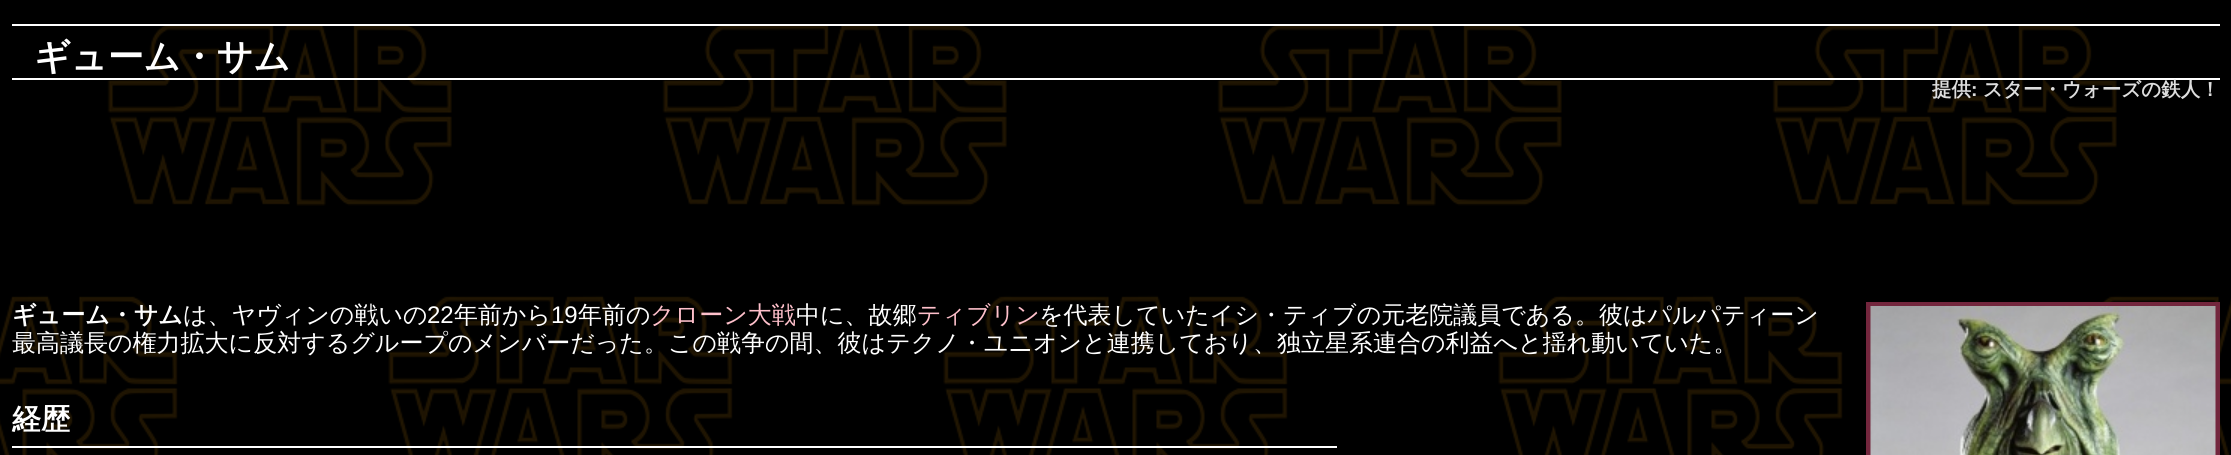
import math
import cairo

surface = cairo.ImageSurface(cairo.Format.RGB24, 2231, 455)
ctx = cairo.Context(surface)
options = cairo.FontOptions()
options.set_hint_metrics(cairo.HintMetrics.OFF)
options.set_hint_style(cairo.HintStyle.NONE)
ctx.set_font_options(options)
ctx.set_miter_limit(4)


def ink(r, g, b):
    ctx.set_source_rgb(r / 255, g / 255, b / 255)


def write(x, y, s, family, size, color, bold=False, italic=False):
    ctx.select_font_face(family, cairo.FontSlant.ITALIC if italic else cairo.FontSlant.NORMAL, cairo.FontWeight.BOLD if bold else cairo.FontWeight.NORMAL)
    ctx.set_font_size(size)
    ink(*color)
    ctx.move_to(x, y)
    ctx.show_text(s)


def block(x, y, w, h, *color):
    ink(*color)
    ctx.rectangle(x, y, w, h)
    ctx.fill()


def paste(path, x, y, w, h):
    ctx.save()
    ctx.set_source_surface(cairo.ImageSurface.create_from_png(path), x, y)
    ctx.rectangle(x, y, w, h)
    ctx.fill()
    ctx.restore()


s1 = dict(family="WenQuanYi Zen Hei", size=36, color=(255, 255, 255), bold=True)
s2 = dict(family="WenQuanYi Zen Hei", size=19.5, color=(221, 221, 221), bold=True)
s3 = dict(family="Liberation Sans", size=19.5, color=(221, 221, 221), bold=True)
s4 = dict(family="WenQuanYi Zen Hei", size=24, color=(255, 255, 255), bold=True)
s5 = dict(family="WenQuanYi Zen Hei Medium", size=24, color=(255, 255, 255))
s6 = dict(family="Liberation Sans", size=24, color=(255, 255, 255))
s7 = dict(family="WenQuanYi Zen Hei Medium", size=24, color=(255, 192, 203))
s8 = dict(family="WenQuanYi Zen Hei", size=29, color=(255, 255, 255), bold=True)

ink(0, 0, 0)
ctx.paint()
paste("pic1.png", 0, 25, 2231, 430)
block(12, 24, 2208, 2, 255, 255, 255)
block(12, 78, 2208, 2, 255, 255, 255)
write(34, 69, "ギューム・サム", **s1)
write(1932, 96, "提供", **s2)
write(1971, 96, ":", **s3)
write(1983, 96, "スター・ウォーズの鉄人！", **s2)
write(12, 323, "ギューム・サム", **s4)
write(183, 323, "は、ヤヴィンの戦いの", **s5)
write(427, 323, "22", **s6)
write(454, 323, "年前から", **s5)
write(551, 323, "19", **s6)
write(578, 323, "年前の", **s5)
write(650, 323, "クローン大戦", **s7)
write(796, 323, "中に、故郷", **s5)
write(917, 323, "ティブリン", **s7)
write(1039, 323, "を代表していたイシ・ティブの元老院議員である。彼はパルパティーン", **s5)
write(12, 351, "最高議長の権力拡大に反対するグループのメンバーだった。この戦争の間、彼はテクノ・ユニオンと連携しており、独立星系連合の利益へと揺れ動いていた。", **s5)
ctx.rectangle(1868.5, 304.5, 349, 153)
ink(115, 38, 61)
ctx.set_line_width(5)
ctx.stroke()
paste("pic2.png", 1870, 306, 346, 149)
block(12, 446, 1325, 2, 255, 255, 255)
write(12, 429, "経歴", **s8)
surface.write_to_png("screenshot.png")
